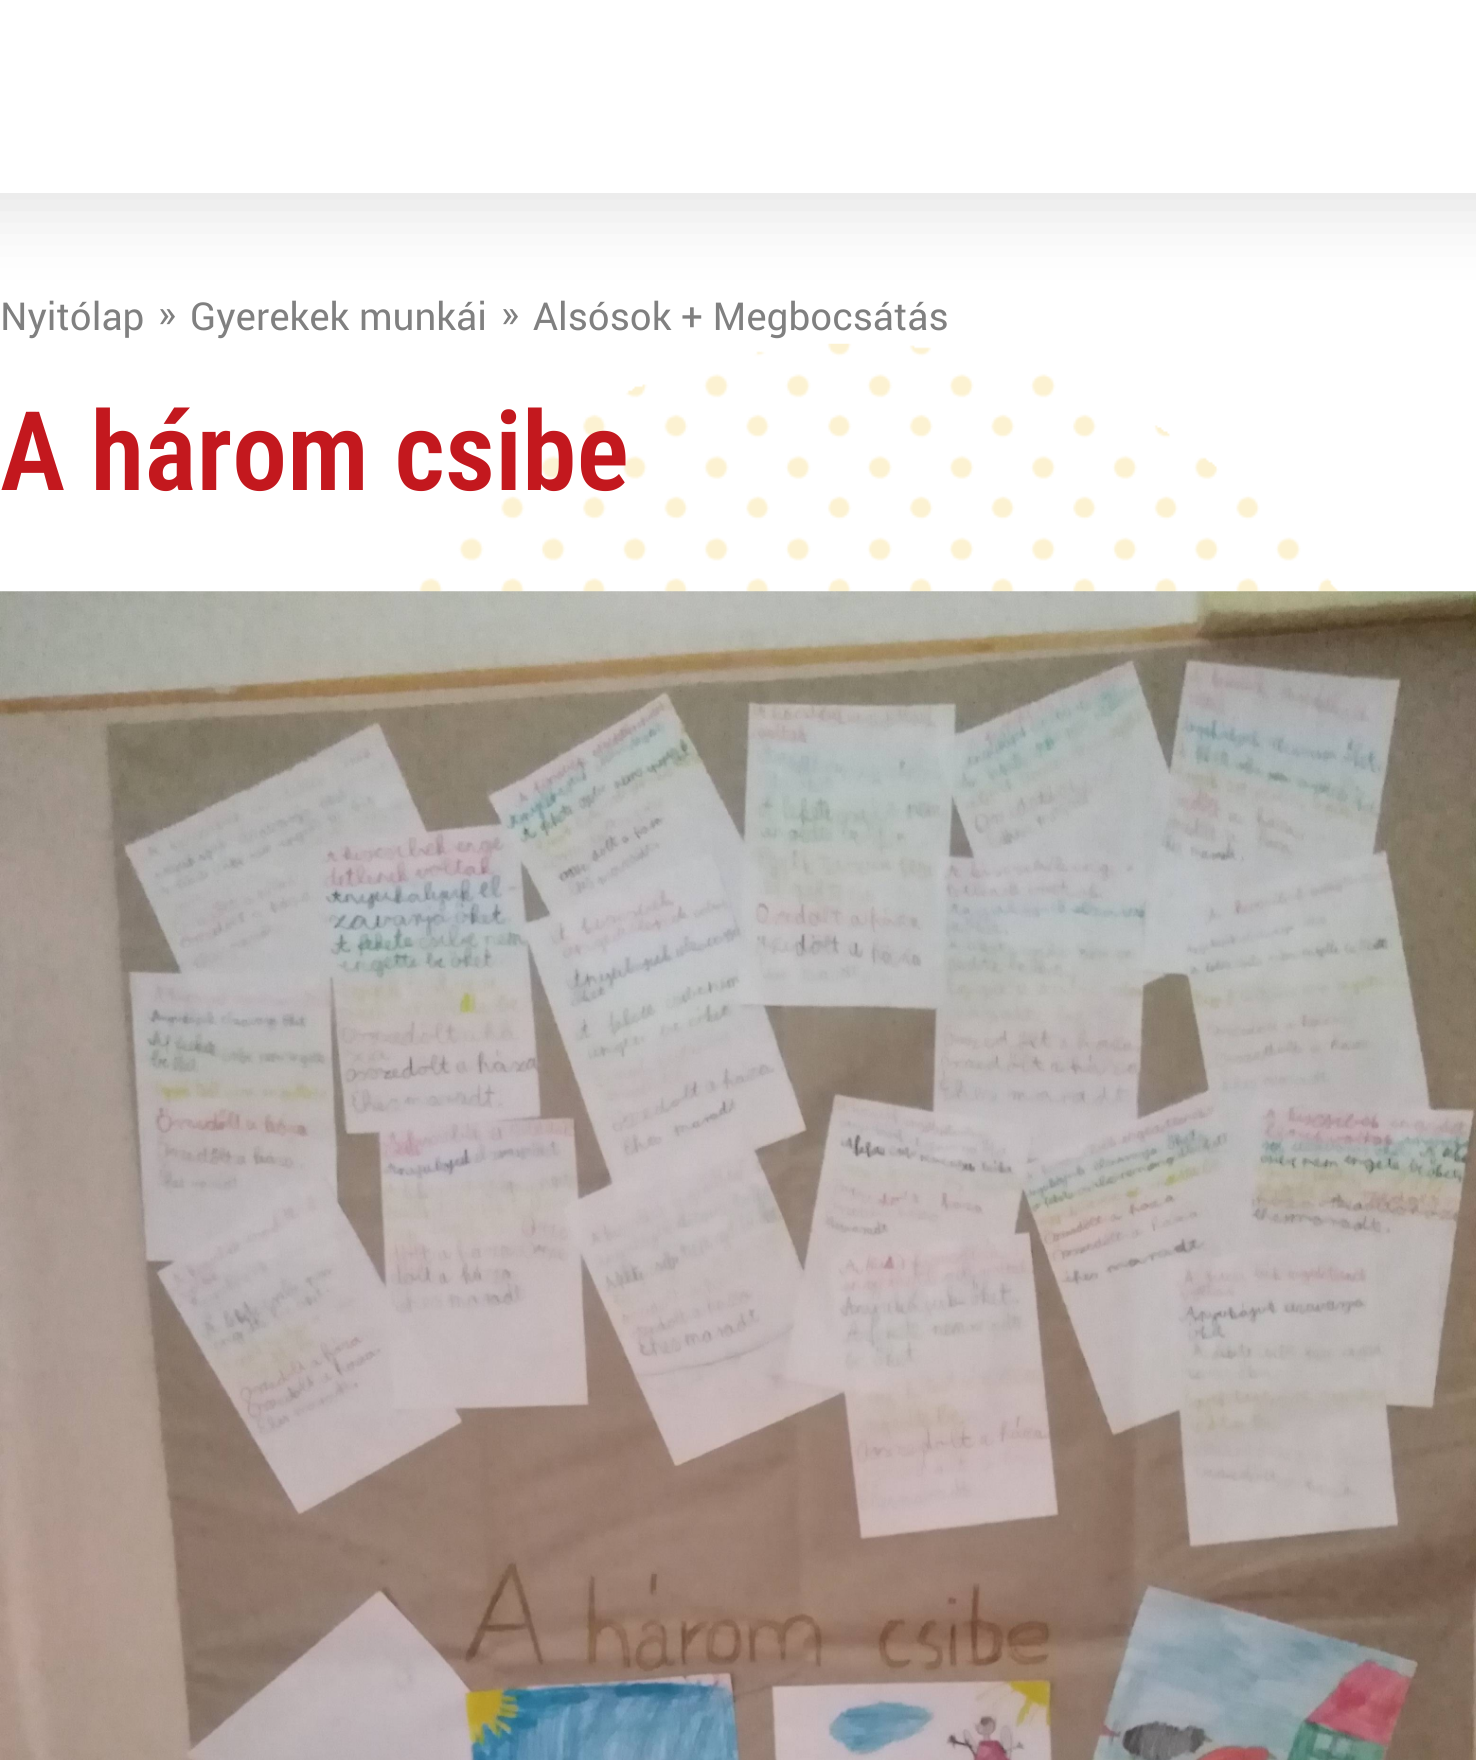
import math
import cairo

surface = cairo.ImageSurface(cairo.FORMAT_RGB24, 1476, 1760)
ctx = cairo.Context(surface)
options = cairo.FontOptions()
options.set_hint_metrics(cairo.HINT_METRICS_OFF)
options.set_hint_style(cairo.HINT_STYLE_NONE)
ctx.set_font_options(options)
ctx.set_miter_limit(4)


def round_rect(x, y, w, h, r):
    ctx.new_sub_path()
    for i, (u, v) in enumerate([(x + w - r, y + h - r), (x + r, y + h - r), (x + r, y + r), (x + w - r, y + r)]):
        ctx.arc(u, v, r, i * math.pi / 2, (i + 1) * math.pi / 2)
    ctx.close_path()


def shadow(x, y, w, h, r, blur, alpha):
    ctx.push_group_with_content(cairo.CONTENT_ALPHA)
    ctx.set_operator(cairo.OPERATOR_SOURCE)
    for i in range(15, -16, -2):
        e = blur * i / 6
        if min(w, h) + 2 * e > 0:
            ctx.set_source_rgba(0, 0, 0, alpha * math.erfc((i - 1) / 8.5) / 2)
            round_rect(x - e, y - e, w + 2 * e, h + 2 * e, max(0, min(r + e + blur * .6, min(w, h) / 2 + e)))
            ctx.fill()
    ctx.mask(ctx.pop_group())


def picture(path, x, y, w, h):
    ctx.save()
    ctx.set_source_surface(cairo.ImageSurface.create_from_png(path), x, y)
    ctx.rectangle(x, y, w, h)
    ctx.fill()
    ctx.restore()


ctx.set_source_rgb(1, 1, 1)
ctx.paint()
ctx.save()
ctx.set_fill_rule(cairo.FILL_RULE_EVEN_ODD)
ctx.new_path()
ctx.move_to(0, 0)
ctx.line_to(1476, 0)
ctx.line_to(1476, 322)
ctx.line_to(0, 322)
ctx.close_path()
ctx.move_to(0, 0)
ctx.line_to(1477, 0)
ctx.line_to(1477, 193)
ctx.line_to(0, 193)
ctx.close_path()
ctx.clip()
ctx.set_source_rgb(0, 0, 0)
shadow(-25, -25, 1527, 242, 0, 34.5, 0.1)
ctx.restore()
picture("img1.png", 418, 343, 922, 249)
ctx.select_font_face("Roboto")
ctx.set_font_size(38.5)
ctx.set_source_rgb(0.502, 0.502, 0.502)
ctx.move_to(0, 330)
ctx.show_text("Nyitólap")
ctx.move_to(158, 327)
ctx.show_text("»")
ctx.move_to(190, 330)
ctx.show_text("Gyerekek munkái")
ctx.move_to(501, 327)
ctx.show_text("»")
ctx.move_to(533, 330)
ctx.show_text("Alsósok + Megbocsátás")
ctx.select_font_face("Roboto Condensed SemiBold")
ctx.set_font_size(110)
ctx.set_source_rgb(0.765, 0.094, 0.118)
ctx.move_to(0, 490)
ctx.show_text("A három csibe")
picture("img2.png", 0, 591, 1476, 1169)
surface.write_to_png("page.png")
